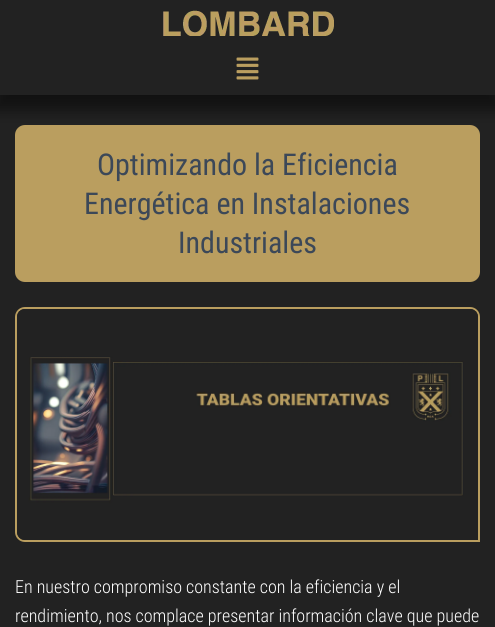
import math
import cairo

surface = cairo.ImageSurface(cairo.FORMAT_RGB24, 495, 627)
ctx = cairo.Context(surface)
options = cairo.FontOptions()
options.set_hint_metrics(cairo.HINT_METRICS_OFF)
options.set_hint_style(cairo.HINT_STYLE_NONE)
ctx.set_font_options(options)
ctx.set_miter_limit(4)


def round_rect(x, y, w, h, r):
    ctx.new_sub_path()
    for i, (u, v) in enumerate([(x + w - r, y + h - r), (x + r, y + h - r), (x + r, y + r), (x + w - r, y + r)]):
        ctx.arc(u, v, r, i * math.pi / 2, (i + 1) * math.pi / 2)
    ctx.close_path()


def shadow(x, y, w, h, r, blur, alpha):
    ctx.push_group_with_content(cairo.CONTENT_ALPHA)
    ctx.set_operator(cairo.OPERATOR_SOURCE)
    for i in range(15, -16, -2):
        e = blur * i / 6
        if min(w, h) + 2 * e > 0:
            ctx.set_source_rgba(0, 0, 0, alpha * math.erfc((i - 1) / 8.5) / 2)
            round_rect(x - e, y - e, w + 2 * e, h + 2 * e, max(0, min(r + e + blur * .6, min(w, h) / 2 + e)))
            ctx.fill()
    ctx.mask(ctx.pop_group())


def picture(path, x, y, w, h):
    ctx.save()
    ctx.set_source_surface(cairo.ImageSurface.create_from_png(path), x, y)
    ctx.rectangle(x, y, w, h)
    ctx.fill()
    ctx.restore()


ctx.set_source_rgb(0.133, 0.133, 0.133)
ctx.paint()
ctx.set_source_rgb(0.729, 0.62, 0.373)
round_rect(15, 125, 465, 157, 10)
ctx.fill()
ctx.save()
ctx.rectangle(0, 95, 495, 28)
ctx.clip()
ctx.set_source_rgb(0, 0, 0)
shadow(-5, 5, 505, 105, 0, 7.5, 0.5)
ctx.restore()
picture("img1.png", 163, 10, 171, 26)
picture("img2.png", 236, 57, 23, 23)
ctx.select_font_face("Roboto Condensed")
ctx.set_font_size(30)
ctx.set_source_rgb(0.235, 0.282, 0.345)
ctx.move_to(97, 175)
ctx.show_text("Optimizando la Eficiencia")
ctx.move_to(84, 214)
ctx.show_text("Energética en Instalaciones")
ctx.move_to(178, 253)
ctx.show_text("Industriales")
ctx.new_path()
ctx.move_to(25, 308)
ctx.line_to(470, 308)
ctx.curve_to(475, 308, 479, 312, 479, 317)
ctx.line_to(479, 541)
ctx.line_to(25, 541)
ctx.curve_to(20, 541, 16, 537, 16, 532)
ctx.line_to(16, 317)
ctx.curve_to(16, 312, 20, 308, 25, 308)
ctx.close_path()
ctx.set_source_rgb(0.729, 0.62, 0.373)
ctx.stroke()
picture("img3.png", 17, 309, 461, 231)
ctx.select_font_face("Roboto Condensed Light")
ctx.set_font_size(18)
ctx.set_source_rgb(1, 1, 1)
ctx.move_to(15, 593)
ctx.show_text("En nuestro compromiso constante con la eficiencia y el")
ctx.move_to(15, 622)
ctx.show_text("rendimiento, nos complace presentar información clave que puede")
ctx.set_source_rgb(0.133, 0.133, 0.133)
ctx.new_path()
ctx.arc(455, 587, 25, 0, 2 * math.pi)
ctx.fill()
surface.write_to_png("page.png")
